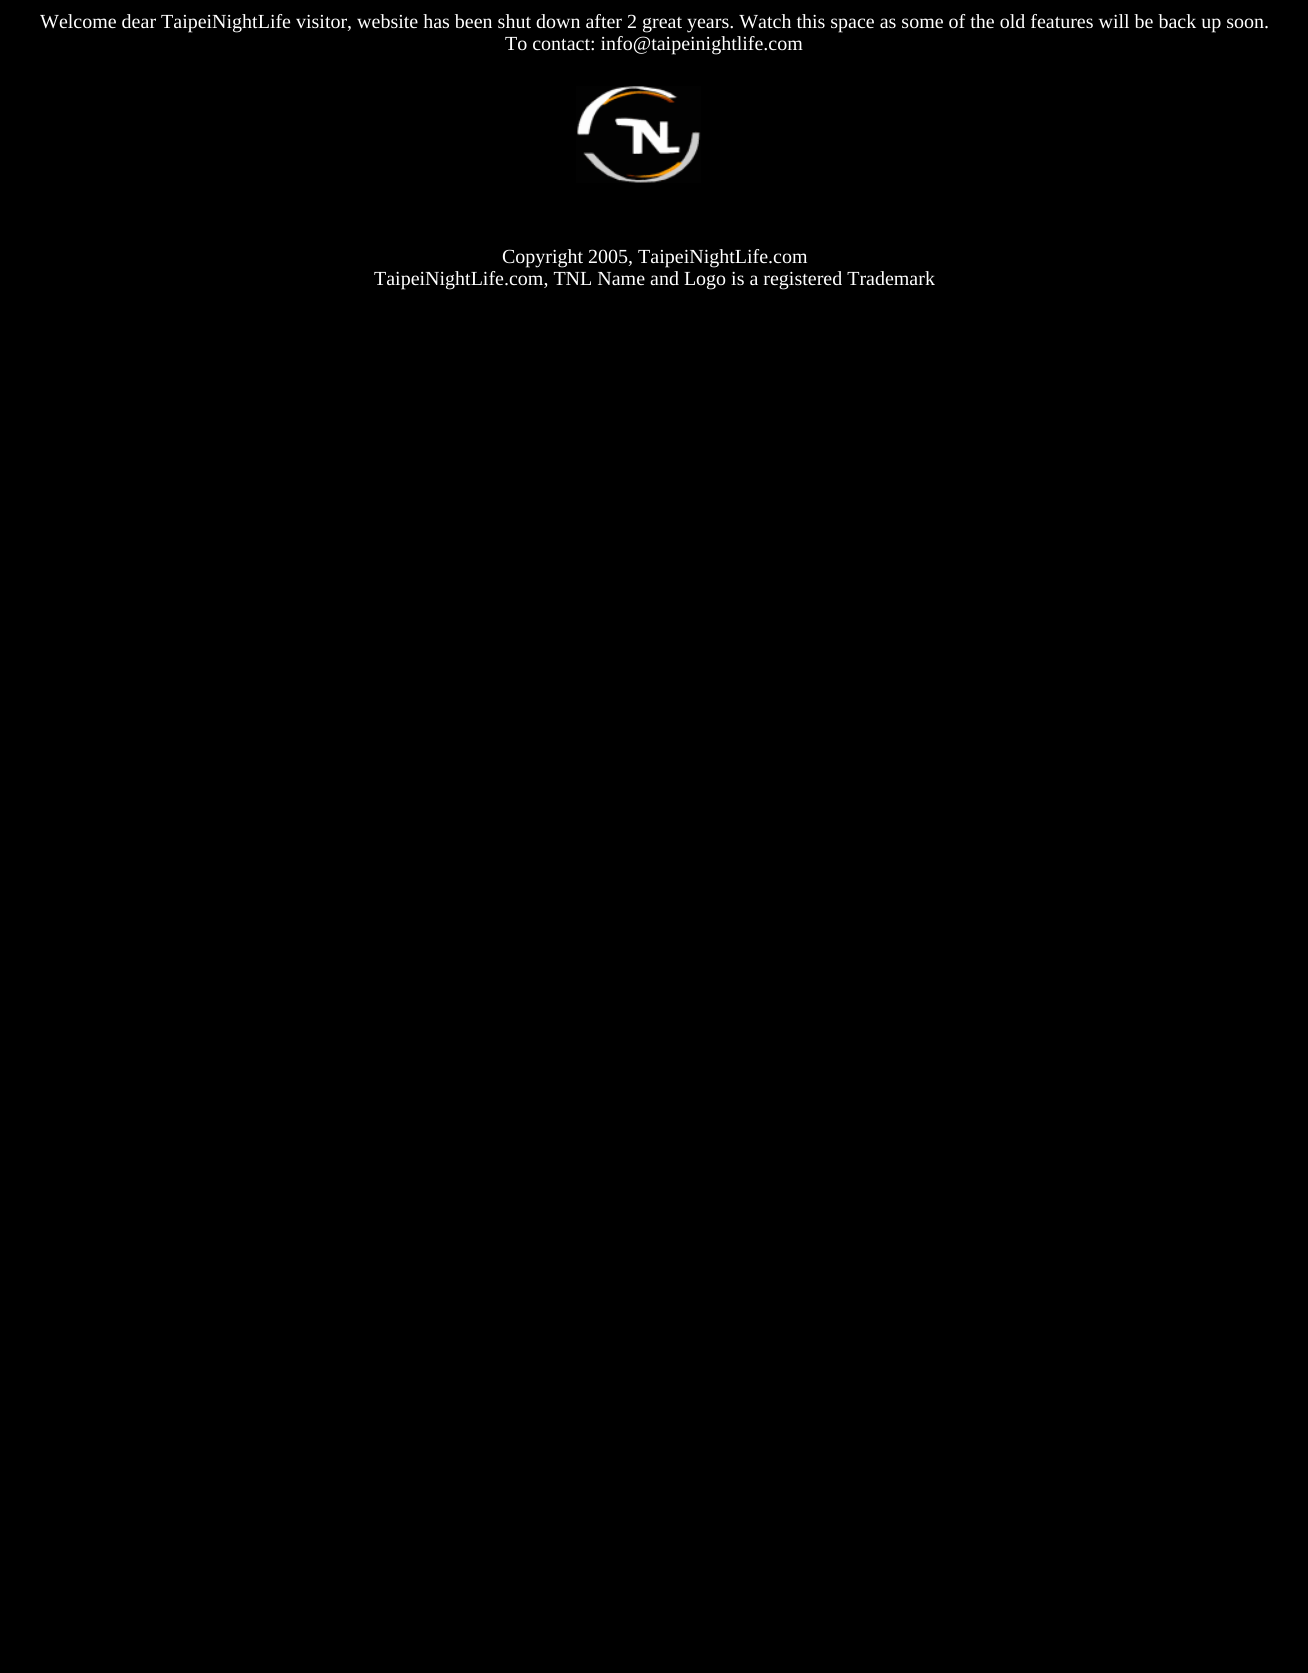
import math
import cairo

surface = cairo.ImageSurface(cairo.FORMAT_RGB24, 1308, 1673)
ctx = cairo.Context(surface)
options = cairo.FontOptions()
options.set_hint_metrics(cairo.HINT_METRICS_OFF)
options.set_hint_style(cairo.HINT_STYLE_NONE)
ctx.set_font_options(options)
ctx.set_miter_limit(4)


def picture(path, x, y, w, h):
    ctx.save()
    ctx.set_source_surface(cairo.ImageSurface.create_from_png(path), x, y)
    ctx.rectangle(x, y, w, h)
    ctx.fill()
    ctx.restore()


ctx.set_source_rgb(0, 0, 0)
ctx.paint()
ctx.select_font_face("Liberation Serif")
ctx.set_font_size(20)
ctx.set_source_rgb(1, 1, 1)
ctx.move_to(40, 28)
ctx.show_text("Welcome dear TaipeiNightLife visitor, website has been shut down after 2 great years. Watch this space as some of the old features will be back up soon.")
ctx.move_to(505, 50)
ctx.show_text("To contact: info@taipeinightlife.com")
picture("img1.png", 576, 86, 125, 97)
ctx.move_to(502, 263)
ctx.show_text("Copyright 2005, TaipeiNightLife.com")
ctx.move_to(374, 285)
ctx.show_text("TaipeiNightLife.com, TNL Name and Logo is a registered Trademark")
surface.write_to_png("page.png")
